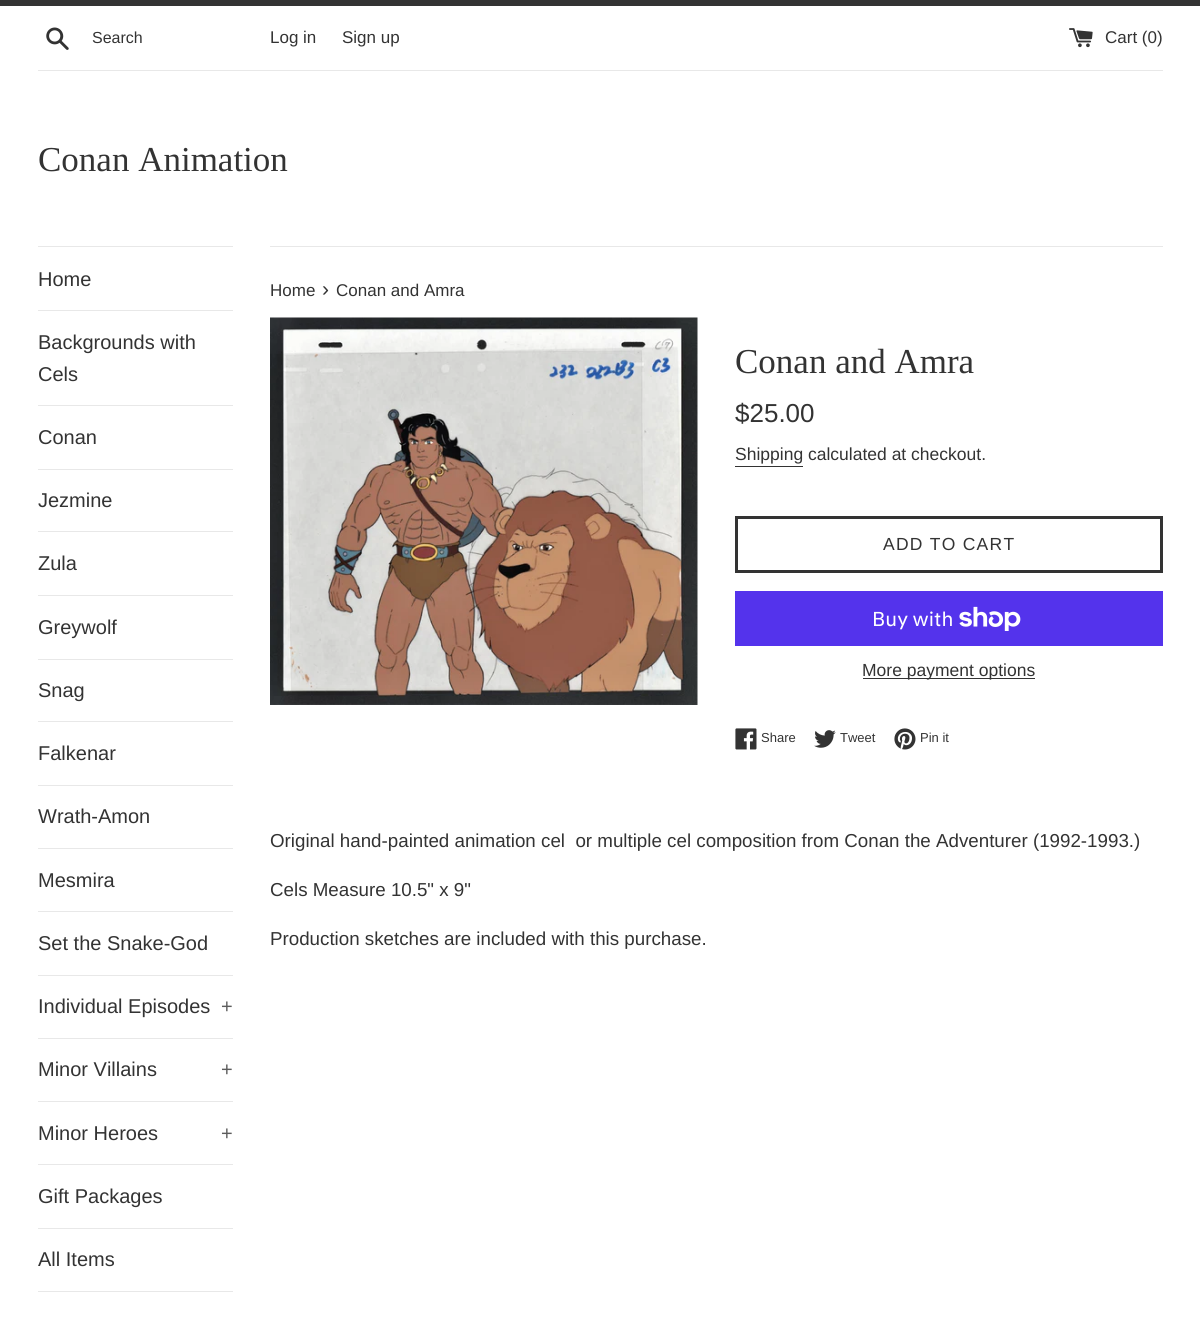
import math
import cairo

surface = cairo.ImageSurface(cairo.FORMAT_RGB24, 1200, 1330)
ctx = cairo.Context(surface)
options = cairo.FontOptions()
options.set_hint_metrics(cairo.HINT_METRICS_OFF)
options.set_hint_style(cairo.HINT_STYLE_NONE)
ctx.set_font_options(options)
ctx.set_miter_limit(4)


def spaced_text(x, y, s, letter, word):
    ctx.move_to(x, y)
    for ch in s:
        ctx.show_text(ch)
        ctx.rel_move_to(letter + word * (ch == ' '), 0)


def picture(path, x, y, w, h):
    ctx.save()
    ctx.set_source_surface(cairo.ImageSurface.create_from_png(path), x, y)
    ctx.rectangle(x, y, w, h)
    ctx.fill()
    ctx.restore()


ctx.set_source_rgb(1, 1, 1)
ctx.paint()
ctx.set_source_rgb(0.2, 0.2, 0.2)
ctx.rectangle(0, 0, 1200, 6)
ctx.fill()
picture("img1.png", 46, 27, 23, 23)
ctx.select_font_face("Liberation Sans")
ctx.set_font_size(16)
ctx.move_to(92, 43)
ctx.show_text("Search")
ctx.set_font_size(17)
ctx.move_to(270, 43)
ctx.show_text("Log in")
ctx.move_to(342, 43)
ctx.show_text("Sign up")
picture("img2.png", 1069, 28, 24, 20)
ctx.move_to(1105, 43)
ctx.show_text("Cart (0)")
ctx.set_source_rgb(0.91, 0.91, 0.91)
ctx.rectangle(38, 70, 1125, 1)
ctx.fill()
ctx.select_font_face("Liberation Serif")
ctx.set_font_size(35)
ctx.set_source_rgb(0.2, 0.2, 0.2)
ctx.move_to(38, 171)
ctx.show_text("Conan Animation")
ctx.set_source_rgb(0.91, 0.91, 0.91)
ctx.rectangle(38, 246, 195, 1)
ctx.fill()
ctx.rectangle(38, 310, 195, 1)
ctx.fill()
ctx.select_font_face("Liberation Sans")
ctx.set_font_size(20)
ctx.set_source_rgb(0.2, 0.2, 0.2)
ctx.move_to(38, 286)
ctx.show_text("Home")
ctx.set_source_rgb(0.91, 0.91, 0.91)
ctx.rectangle(38, 405, 195, 1)
ctx.fill()
ctx.set_source_rgb(0.2, 0.2, 0.2)
ctx.move_to(38, 349)
ctx.show_text("Backgrounds with")
ctx.move_to(38, 381)
ctx.show_text("Cels")
ctx.set_source_rgb(0.91, 0.91, 0.91)
ctx.rectangle(38, 469, 195, 1)
ctx.fill()
ctx.set_source_rgb(0.2, 0.2, 0.2)
ctx.move_to(38, 444)
ctx.show_text("Conan")
ctx.set_source_rgb(0.91, 0.91, 0.91)
ctx.rectangle(38, 531, 195, 1)
ctx.fill()
ctx.set_source_rgb(0.2, 0.2, 0.2)
ctx.move_to(38, 507)
ctx.show_text("Jezmine")
ctx.set_source_rgb(0.91, 0.91, 0.91)
ctx.rectangle(38, 595, 195, 1)
ctx.fill()
ctx.set_source_rgb(0.2, 0.2, 0.2)
ctx.move_to(38, 570)
ctx.show_text("Zula")
ctx.set_source_rgb(0.91, 0.91, 0.91)
ctx.rectangle(38, 659, 195, 1)
ctx.fill()
ctx.set_source_rgb(0.2, 0.2, 0.2)
ctx.move_to(38, 634)
ctx.show_text("Greywolf")
ctx.set_source_rgb(0.91, 0.91, 0.91)
ctx.rectangle(38, 721, 195, 1)
ctx.fill()
ctx.set_source_rgb(0.2, 0.2, 0.2)
ctx.move_to(38, 697)
ctx.show_text("Snag")
ctx.set_source_rgb(0.91, 0.91, 0.91)
ctx.rectangle(38, 785, 195, 1)
ctx.fill()
ctx.set_source_rgb(0.2, 0.2, 0.2)
ctx.move_to(38, 760)
ctx.show_text("Falkenar")
ctx.set_source_rgb(0.91, 0.91, 0.91)
ctx.rectangle(38, 848, 195, 1)
ctx.fill()
ctx.set_source_rgb(0.2, 0.2, 0.2)
ctx.move_to(38, 823)
ctx.show_text("Wrath-Amon")
ctx.set_source_rgb(0.91, 0.91, 0.91)
ctx.rectangle(38, 911, 195, 1)
ctx.fill()
ctx.set_source_rgb(0.2, 0.2, 0.2)
ctx.move_to(38, 887)
ctx.show_text("Mesmira")
ctx.set_source_rgb(0.91, 0.91, 0.91)
ctx.rectangle(38, 975, 195, 1)
ctx.fill()
ctx.set_source_rgb(0.2, 0.2, 0.2)
ctx.move_to(38, 950)
ctx.show_text("Set the Snake-God")
ctx.set_source_rgb(0.91, 0.91, 0.91)
ctx.rectangle(38, 1038, 195, 1)
ctx.fill()
ctx.set_source_rgb(0.2, 0.2, 0.2)
ctx.move_to(38, 1013)
ctx.show_text("Individual Episodes")
ctx.set_source_rgb(0.361, 0.361, 0.361)
ctx.move_to(221, 1013)
ctx.show_text("+")
ctx.set_source_rgb(0.91, 0.91, 0.91)
ctx.rectangle(38, 1101, 195, 1)
ctx.fill()
ctx.set_source_rgb(0.2, 0.2, 0.2)
ctx.move_to(38, 1076)
ctx.show_text("Minor Villains")
ctx.set_source_rgb(0.361, 0.361, 0.361)
ctx.move_to(221, 1076)
ctx.show_text("+")
ctx.set_source_rgb(0.91, 0.91, 0.91)
ctx.rectangle(38, 1164, 195, 1)
ctx.fill()
ctx.set_source_rgb(0.2, 0.2, 0.2)
ctx.move_to(38, 1140)
ctx.show_text("Minor Heroes")
ctx.set_source_rgb(0.361, 0.361, 0.361)
ctx.move_to(221, 1140)
ctx.show_text("+")
ctx.set_source_rgb(0.91, 0.91, 0.91)
ctx.rectangle(38, 1228, 195, 1)
ctx.fill()
ctx.set_source_rgb(0.2, 0.2, 0.2)
ctx.move_to(38, 1203)
ctx.show_text("Gift Packages")
ctx.set_source_rgb(0.91, 0.91, 0.91)
ctx.rectangle(38, 1291, 195, 1)
ctx.fill()
ctx.set_source_rgb(0.2, 0.2, 0.2)
ctx.move_to(38, 1266)
ctx.show_text("All Items")
ctx.set_source_rgb(0.91, 0.91, 0.91)
ctx.rectangle(270, 246, 893, 1)
ctx.fill()
ctx.set_font_size(17)
ctx.set_source_rgb(0.2, 0.2, 0.2)
ctx.move_to(270, 296)
ctx.show_text("Home")
ctx.set_font_size(21)
ctx.move_to(322, 296)
ctx.show_text("›")
ctx.set_font_size(17)
ctx.move_to(336, 296)
ctx.show_text("Conan and Amra")
picture("img3.png", 270, 317, 428, 388)
ctx.select_font_face("Liberation Serif")
ctx.set_font_size(35)
ctx.move_to(735, 373)
ctx.show_text("Conan and Amra")
ctx.select_font_face("Liberation Sans")
ctx.set_font_size(26)
ctx.move_to(735, 422)
ctx.show_text("$25.00")
ctx.set_font_size(17.5)
ctx.move_to(735, 460)
ctx.show_text("Shipping calculated at checkout.")
ctx.rectangle(735, 466, 68, 1)
ctx.fill()
ctx.rectangle(736.5, 517.5, 425, 54)
ctx.set_line_width(3)
ctx.stroke()
spaced_text(883, 550, "ADD TO CART", 1.25, 0)
ctx.set_source_rgb(0.329, 0.2, 0.922)
ctx.rectangle(735, 591, 428, 55)
ctx.fill()
ctx.select_font_face("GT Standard")
ctx.set_font_size(20)
ctx.set_source_rgb(1, 1, 1)
ctx.move_to(872, 626)
ctx.show_text("Buy with")
picture("img4.png", 959, 606, 62, 25)
ctx.set_source_rgb(0.2, 0.2, 0.2)
ctx.rectangle(863, 678, 172, 1)
ctx.fill()
ctx.select_font_face("Liberation Sans")
ctx.set_font_size(17.5)
ctx.move_to(862, 676)
ctx.show_text("More payment options")
picture("img5.png", 735, 728, 22, 22)
ctx.set_font_size(13)
ctx.move_to(761, 742)
ctx.show_text("Share")
picture("img6.png", 814, 730, 22, 18)
ctx.move_to(840, 742)
ctx.show_text("Tweet")
picture("img7.png", 894, 728, 22, 22)
ctx.move_to(920, 742)
ctx.show_text("Pin it")
ctx.set_font_size(18.75)
ctx.move_to(270, 847)
ctx.show_text("Original hand-painted animation cel  or multiple cel composition from Conan the Adventurer (1992-1993.)")
ctx.move_to(270, 896)
ctx.show_text("Cels Measure 10.5\" x 9\"")
ctx.move_to(270, 945)
ctx.show_text("Production sketches are included with this purchase.")
surface.write_to_png("page.png")
